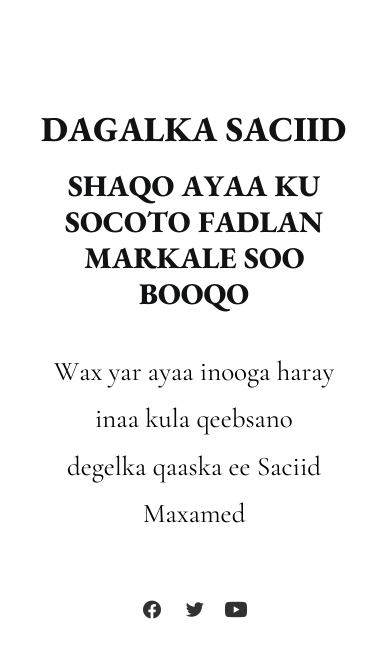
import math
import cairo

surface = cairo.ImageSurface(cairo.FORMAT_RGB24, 388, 666)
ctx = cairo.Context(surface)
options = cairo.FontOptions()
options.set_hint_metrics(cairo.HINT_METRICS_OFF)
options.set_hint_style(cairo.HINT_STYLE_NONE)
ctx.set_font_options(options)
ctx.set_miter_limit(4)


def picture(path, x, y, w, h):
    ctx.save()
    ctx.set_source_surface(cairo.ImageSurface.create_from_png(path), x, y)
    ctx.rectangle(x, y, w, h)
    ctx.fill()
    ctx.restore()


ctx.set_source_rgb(1, 1, 1)
ctx.paint()
ctx.select_font_face("EB Garamond ExtraBold")
ctx.set_font_size(35)
ctx.set_source_rgb(0.063, 0.071, 0.075)
ctx.move_to(41, 141)
ctx.show_text("DAGALKA SACIID")
ctx.set_font_size(30)
ctx.move_to(68, 196)
ctx.show_text("SHAQO AYAA KU")
ctx.move_to(65, 232)
ctx.show_text("SOCOTO FADLAN")
ctx.move_to(84, 268)
ctx.show_text("MARKALE SOO")
ctx.move_to(139, 304)
ctx.show_text("BOOQO")
ctx.select_font_face("Cormorant Garamond")
ctx.set_font_size(27)
ctx.set_source_rgb(0, 0, 0)
ctx.move_to(54, 380)
ctx.show_text("Wax yar ayaa inooga haray")
ctx.move_to(95, 427)
ctx.show_text("inaa kula qeebsano")
ctx.move_to(67, 475)
ctx.show_text("degelka qaaska ee Saciid")
ctx.move_to(143, 522)
ctx.show_text("Maxamed")
picture("img1.png", 143, 600, 18, 19)
picture("img2.png", 186, 602, 18, 15)
picture("img3.png", 224, 601, 24, 17)
surface.write_to_png("page.png")
